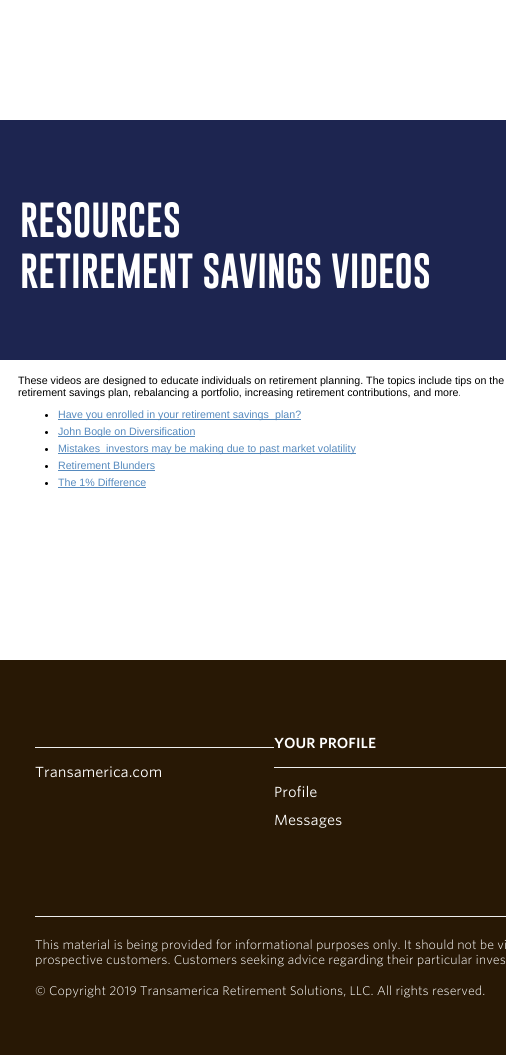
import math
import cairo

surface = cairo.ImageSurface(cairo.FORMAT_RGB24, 506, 1059)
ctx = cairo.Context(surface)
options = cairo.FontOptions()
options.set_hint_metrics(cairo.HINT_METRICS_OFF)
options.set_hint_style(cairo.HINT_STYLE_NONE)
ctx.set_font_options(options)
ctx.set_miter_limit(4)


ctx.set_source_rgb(1, 1, 1)
ctx.paint()
ctx.set_source_rgb(0.114, 0.145, 0.314)
ctx.rectangle(0, 120, 506, 240)
ctx.fill()
ctx.select_font_face("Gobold", cairo.FONT_SLANT_NORMAL, cairo.FONT_WEIGHT_BOLD)
ctx.set_font_size(36)
ctx.set_source_rgb(1, 1, 1)
ctx.move_to(20, 237)
ctx.show_text("RESOURCES")
ctx.move_to(20, 288)
ctx.show_text("RETIREMENT SAVINGS VIDEOS")
ctx.select_font_face("Liberation Sans")
ctx.set_font_size(10.65)
ctx.set_source_rgb(0, 0, 0)
ctx.move_to(18, 384)
ctx.show_text("These videos are designed to educate individuals on retirement planning. The topics include tips on the")
ctx.move_to(18, 396)
ctx.show_text("retirement savings plan, rebalancing a portfolio, increasing retirement contributions, and more.")
ctx.new_path()
ctx.arc(46.5, 415.5, 1.5, 0, 2 * math.pi)
ctx.fill()
ctx.set_source_rgb(0.337, 0.541, 0.745)
ctx.rectangle(58, 419, 243, 1)
ctx.fill()
ctx.move_to(58, 418)
ctx.show_text("Have you enrolled in your retirement savings")
ctx.move_to(275, 418)
ctx.show_text("plan?")
ctx.set_source_rgb(0, 0, 0)
ctx.new_path()
ctx.arc(46.5, 432.5, 1.5, 0, 2 * math.pi)
ctx.fill()
ctx.set_source_rgb(0.337, 0.541, 0.745)
ctx.rectangle(58, 436, 137, 1)
ctx.fill()
ctx.move_to(58, 435)
ctx.show_text("John Bogle on Diversification")
ctx.set_source_rgb(0, 0, 0)
ctx.new_path()
ctx.arc(46.5, 449.5, 1.5, 0, 2 * math.pi)
ctx.fill()
ctx.set_source_rgb(0.337, 0.541, 0.745)
ctx.rectangle(58, 453, 298, 1)
ctx.fill()
ctx.move_to(58, 452)
ctx.show_text("Mistakes  investors may be making due to past market volatility")
ctx.set_source_rgb(0, 0, 0)
ctx.new_path()
ctx.arc(46.5, 466.5, 1.5, 0, 2 * math.pi)
ctx.fill()
ctx.set_source_rgb(0.337, 0.541, 0.745)
ctx.move_to(58, 469)
ctx.show_text("Retirement Blunders")
ctx.rectangle(58, 470, 97, 1)
ctx.fill()
ctx.set_source_rgb(0, 0, 0)
ctx.arc(46.5, 483.5, 1.5, 0, 2 * math.pi)
ctx.fill()
ctx.set_source_rgb(0.337, 0.541, 0.745)
ctx.move_to(58, 486)
ctx.show_text("The 1% Difference")
ctx.rectangle(58, 487, 88, 1)
ctx.fill()
ctx.set_source_rgb(0.157, 0.094, 0.02)
ctx.rectangle(0, 660, 506, 395)
ctx.fill()
ctx.select_font_face("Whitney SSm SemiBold")
ctx.set_font_size(14)
ctx.set_source_rgb(1, 1, 1)
ctx.move_to(274, 748)
ctx.show_text("YOUR PROFILE")
ctx.set_source_rgb(0.933, 0.933, 0.933)
ctx.rectangle(35, 747, 239, 1)
ctx.fill()
ctx.select_font_face("Whitney SSm")
ctx.set_source_rgb(1, 1, 1)
ctx.move_to(35, 777)
ctx.show_text("Transamerica.com")
ctx.set_source_rgb(0.933, 0.933, 0.933)
ctx.rectangle(274, 767, 232, 1)
ctx.fill()
ctx.set_source_rgb(1, 1, 1)
ctx.move_to(274, 797)
ctx.show_text("Profile")
ctx.move_to(274, 825)
ctx.show_text("Messages")
ctx.set_source_rgb(0.933, 0.933, 0.933)
ctx.rectangle(35, 916, 471, 1)
ctx.fill()
ctx.select_font_face("Whitney SSm Light")
ctx.set_font_size(12)
ctx.set_source_rgb(1, 1, 1)
ctx.move_to(35, 949)
ctx.show_text("This material is being provided for informational purposes only. It should not be vi")
ctx.move_to(35, 964)
ctx.show_text("prospective customers. Customers seeking advice regarding their particular inves")
ctx.move_to(35, 995)
ctx.show_text("© Copyright 2019 Transamerica Retirement Solutions, LLC. All rights reserved.")
surface.write_to_png("page.png")
